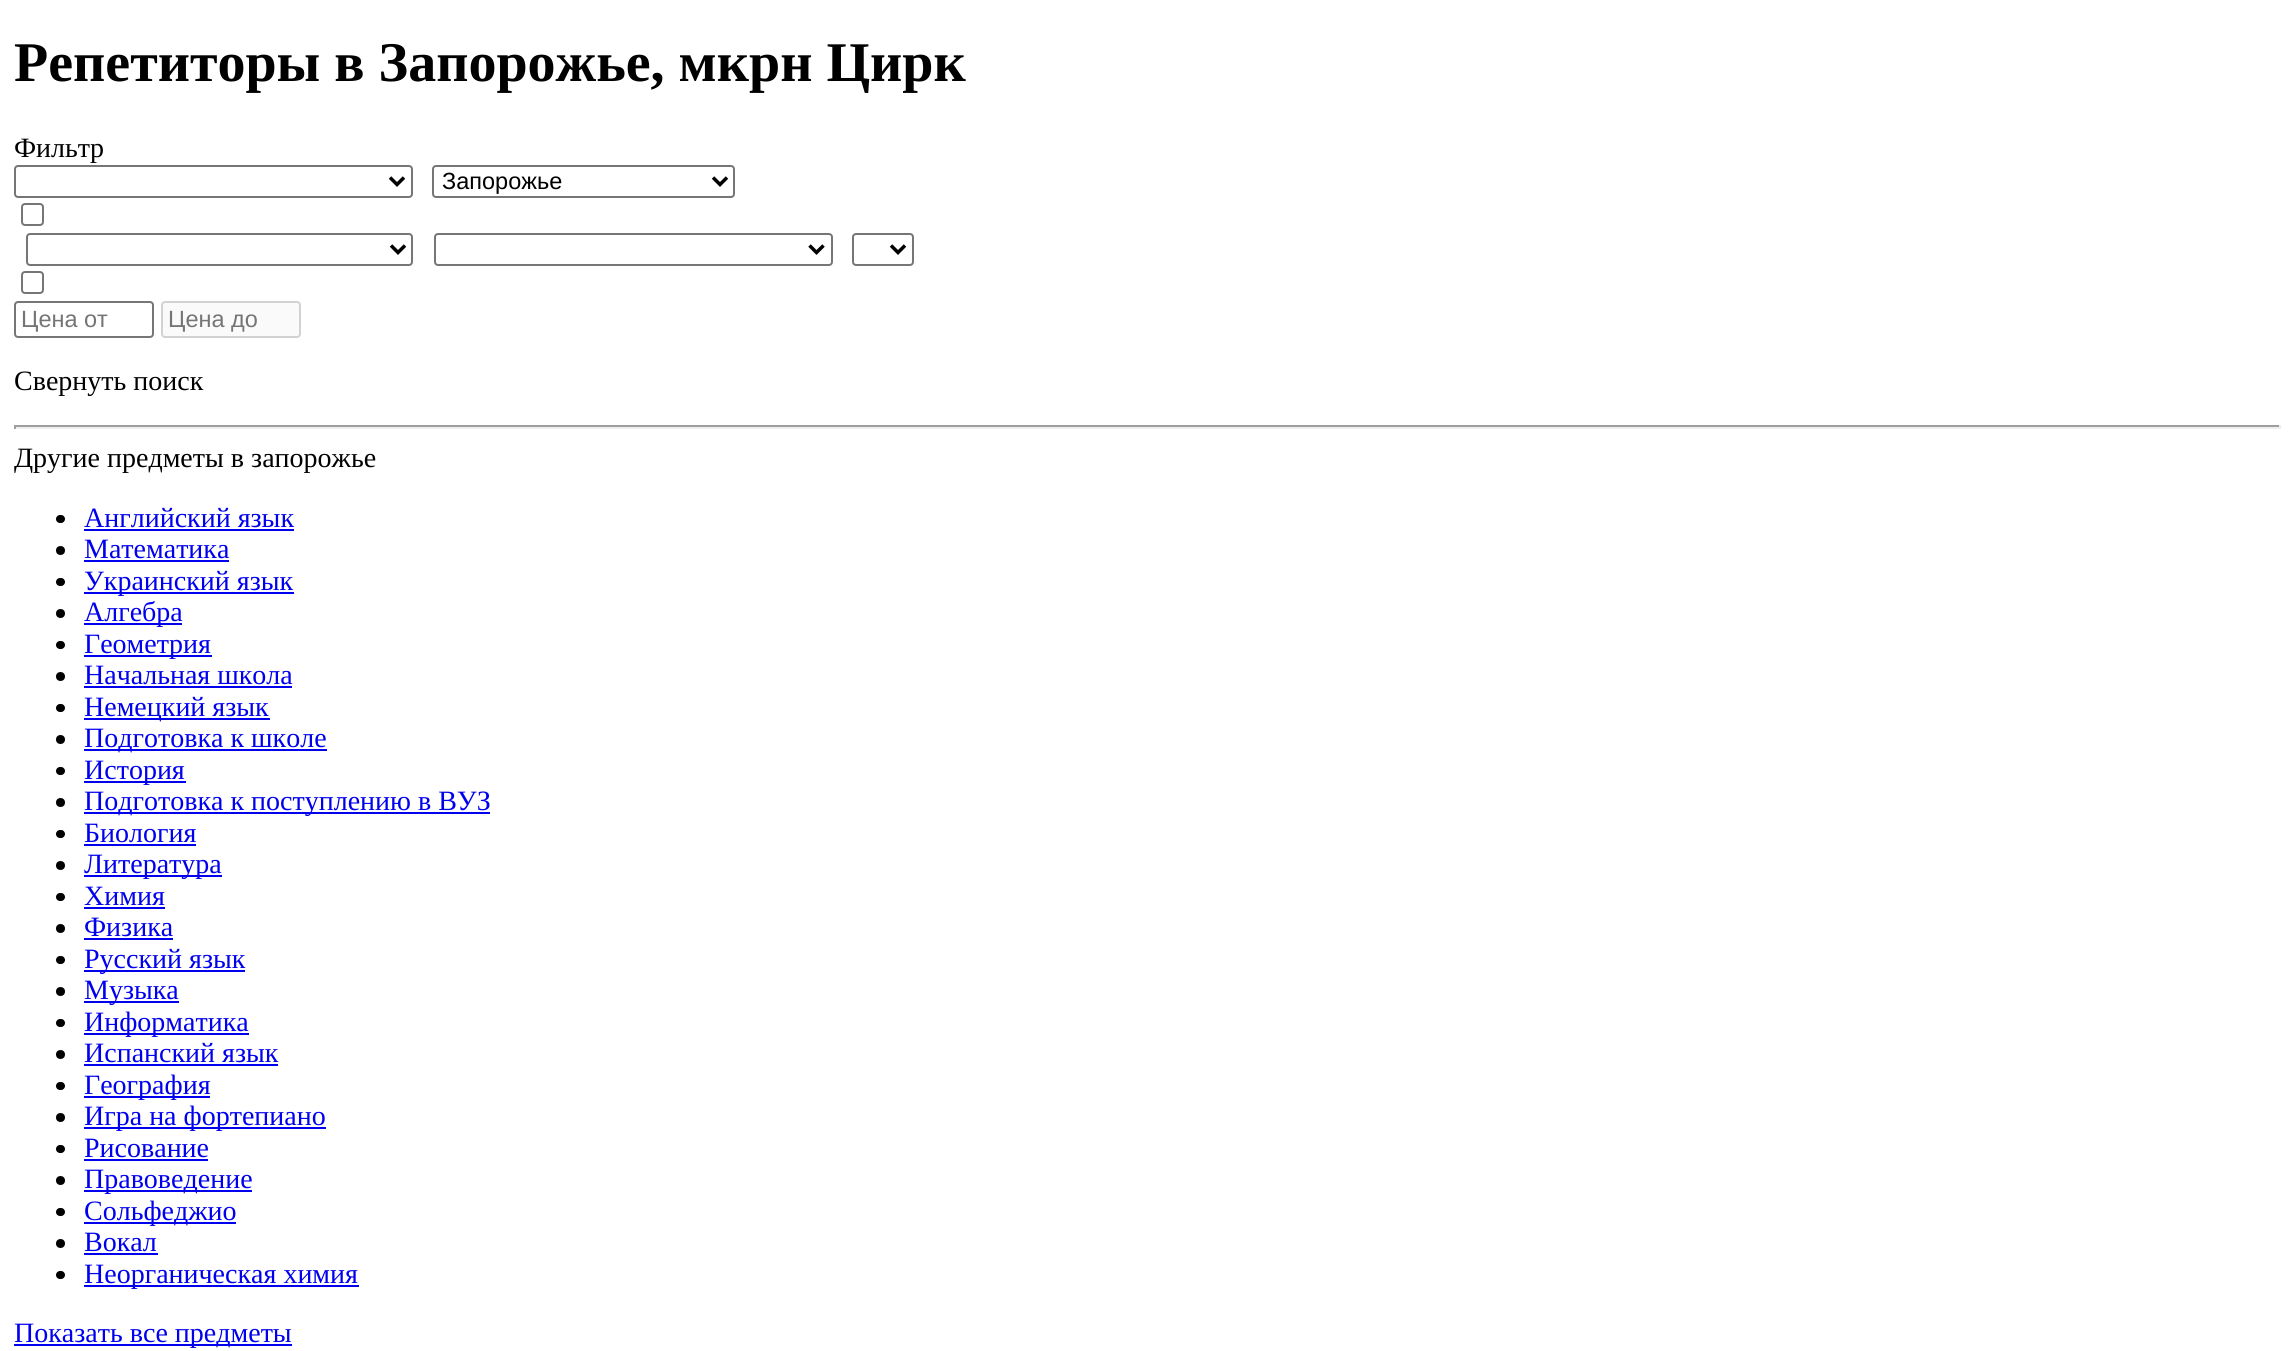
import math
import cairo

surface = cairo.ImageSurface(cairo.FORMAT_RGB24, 2294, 1351)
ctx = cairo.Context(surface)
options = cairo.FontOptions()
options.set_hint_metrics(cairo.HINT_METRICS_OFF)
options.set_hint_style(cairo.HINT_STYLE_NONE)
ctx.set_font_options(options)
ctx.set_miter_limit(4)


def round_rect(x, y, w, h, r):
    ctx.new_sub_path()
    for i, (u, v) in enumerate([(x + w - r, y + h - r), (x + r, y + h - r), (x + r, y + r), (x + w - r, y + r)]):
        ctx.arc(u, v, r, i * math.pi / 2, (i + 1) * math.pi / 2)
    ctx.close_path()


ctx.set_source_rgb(1, 1, 1)
ctx.paint()
ctx.select_font_face("Liberation Serif", cairo.FONT_SLANT_NORMAL, cairo.FONT_WEIGHT_BOLD)
ctx.set_font_size(56)
ctx.set_source_rgb(0, 0, 0)
ctx.move_to(14, 81)
ctx.show_text("Репетиторы в Запорожье, мкрн Цирк")
ctx.select_font_face("Liberation Serif")
ctx.set_font_size(28)
ctx.move_to(14, 157)
ctx.show_text("Фильтр")
round_rect(15, 166, 397, 31, 3)
ctx.set_source_rgb(0.463, 0.463, 0.463)
ctx.stroke()
ctx.new_path()
ctx.move_to(390, 177.5)
ctx.line_to(397, 184.5)
ctx.line_to(404, 177.5)
ctx.set_source_rgb(0, 0, 0)
ctx.set_line_width(3.5)
ctx.stroke()
round_rect(433, 166, 301, 31, 3)
ctx.set_source_rgb(0.463, 0.463, 0.463)
ctx.set_line_width(2)
ctx.stroke()
ctx.new_path()
ctx.move_to(713, 177.5)
ctx.line_to(720, 184.5)
ctx.line_to(727, 177.5)
ctx.set_source_rgb(0, 0, 0)
ctx.set_line_width(3.5)
ctx.stroke()
ctx.select_font_face("Liberation Sans")
ctx.set_font_size(23.5)
ctx.move_to(442, 189)
ctx.show_text("Запорожье")
round_rect(22, 204, 21, 21, 3)
ctx.set_source_rgb(0.463, 0.463, 0.463)
ctx.set_line_width(2)
ctx.stroke()
round_rect(27, 234, 385, 31, 3)
ctx.stroke()
ctx.new_path()
ctx.move_to(391, 245.5)
ctx.line_to(398, 252.5)
ctx.line_to(405, 245.5)
ctx.set_source_rgb(0, 0, 0)
ctx.set_line_width(3.5)
ctx.stroke()
round_rect(435, 234, 397, 31, 3)
ctx.set_source_rgb(0.463, 0.463, 0.463)
ctx.set_line_width(2)
ctx.stroke()
ctx.new_path()
ctx.move_to(809.5, 245.5)
ctx.line_to(816.5, 252.5)
ctx.line_to(823.5, 245.5)
ctx.set_source_rgb(0, 0, 0)
ctx.set_line_width(3.5)
ctx.stroke()
round_rect(853, 234, 60, 31, 3)
ctx.set_source_rgb(0.463, 0.463, 0.463)
ctx.set_line_width(2)
ctx.stroke()
ctx.new_path()
ctx.move_to(891, 245.5)
ctx.line_to(898, 252.5)
ctx.line_to(905, 245.5)
ctx.set_source_rgb(0, 0, 0)
ctx.set_line_width(3.5)
ctx.stroke()
round_rect(22, 272, 21, 21, 3)
ctx.set_source_rgb(0.463, 0.463, 0.463)
ctx.set_line_width(2)
ctx.stroke()
round_rect(15, 302, 138, 35, 3)
ctx.stroke()
ctx.set_source_rgb(0.459, 0.459, 0.459)
ctx.move_to(21, 327)
ctx.show_text("Цена от")
ctx.set_source_rgb(0.98, 0.98, 0.98)
round_rect(162, 302, 138, 35, 3)
ctx.fill_preserve()
ctx.set_source_rgb(0.824, 0.824, 0.824)
ctx.stroke()
ctx.set_source_rgb(0.459, 0.459, 0.459)
ctx.move_to(168, 327)
ctx.show_text("Цена до")
ctx.select_font_face("Liberation Serif")
ctx.set_font_size(28)
ctx.set_source_rgb(0, 0, 0)
ctx.move_to(14, 390)
ctx.show_text("Свернуть поиск")
ctx.set_source_rgb(0.624, 0.624, 0.624)
ctx.rectangle(14, 425, 2266, 2)
ctx.fill()
ctx.set_source_rgb(0.933, 0.933, 0.933)
ctx.rectangle(2279, 425, 2, 4)
ctx.fill()
ctx.rectangle(14, 427, 2266, 2)
ctx.fill()
ctx.set_source_rgb(0.624, 0.624, 0.624)
ctx.rectangle(14, 425, 2, 4)
ctx.fill()
ctx.set_source_rgb(0, 0, 0)
ctx.move_to(14, 467)
ctx.show_text("Другие предметы в запорожье")
round_rect(56, 515, 9, 8, 4)
ctx.fill()
ctx.set_source_rgb(0, 0, 0.933)
ctx.move_to(84, 527)
ctx.show_text("Английский язык")
ctx.rectangle(84, 529, 210, 2)
ctx.fill()
ctx.set_source_rgb(0, 0, 0)
ctx.arc(60.5, 550.5, 4.5, 0, 2 * math.pi)
ctx.fill()
ctx.set_source_rgb(0, 0, 0.933)
ctx.move_to(84, 558)
ctx.show_text("Математика")
ctx.rectangle(84, 560, 145, 2)
ctx.fill()
ctx.set_source_rgb(0, 0, 0)
round_rect(56, 578, 9, 8, 4)
ctx.fill()
ctx.set_source_rgb(0, 0, 0.933)
ctx.rectangle(84, 592, 210, 2)
ctx.fill()
ctx.move_to(84, 590)
ctx.show_text("Украинский язык")
ctx.set_source_rgb(0, 0, 0)
ctx.new_path()
ctx.arc(60.5, 613.5, 4.5, 0, 2 * math.pi)
ctx.fill()
ctx.set_source_rgb(0, 0, 0.933)
ctx.rectangle(84, 623, 98, 2)
ctx.fill()
ctx.move_to(84, 621)
ctx.show_text("Алгебра")
ctx.set_source_rgb(0, 0, 0)
round_rect(56, 641, 9, 8, 4)
ctx.fill()
ctx.set_source_rgb(0, 0, 0.933)
ctx.rectangle(84, 655, 128, 2)
ctx.fill()
ctx.move_to(84, 653)
ctx.show_text("Геометрия")
ctx.set_source_rgb(0, 0, 0)
ctx.new_path()
ctx.arc(60.5, 676.5, 4.5, 0, 2 * math.pi)
ctx.fill()
ctx.set_source_rgb(0, 0, 0.933)
ctx.move_to(84, 684)
ctx.show_text("Начальная школа")
ctx.rectangle(84, 686, 208, 2)
ctx.fill()
ctx.set_source_rgb(0, 0, 0)
round_rect(56, 704, 9, 8, 4)
ctx.fill()
ctx.set_source_rgb(0, 0, 0.933)
ctx.rectangle(84, 718, 186, 2)
ctx.fill()
ctx.move_to(84, 716)
ctx.show_text("Немецкий язык")
ctx.set_source_rgb(0, 0, 0)
ctx.new_path()
ctx.arc(60.5, 739.5, 4.5, 0, 2 * math.pi)
ctx.fill()
ctx.set_source_rgb(0, 0, 0.933)
ctx.rectangle(84, 749, 243, 2)
ctx.fill()
ctx.move_to(84, 747)
ctx.show_text("Подготовка к школе")
ctx.set_source_rgb(0, 0, 0)
round_rect(56, 767, 9, 8, 4)
ctx.fill()
ctx.set_source_rgb(0, 0, 0.933)
ctx.rectangle(84, 781, 102, 2)
ctx.fill()
ctx.move_to(84, 779)
ctx.show_text("История")
ctx.set_source_rgb(0, 0, 0)
ctx.new_path()
ctx.arc(60.5, 802.5, 4.5, 0, 2 * math.pi)
ctx.fill()
ctx.set_source_rgb(0, 0, 0.933)
ctx.rectangle(84, 812, 406, 2)
ctx.fill()
ctx.move_to(84, 810)
ctx.show_text("Подготовка к поступлению в ВУЗ")
ctx.set_source_rgb(0, 0, 0)
round_rect(56, 830, 9, 8, 4)
ctx.fill()
ctx.set_source_rgb(0, 0, 0.933)
ctx.move_to(84, 842)
ctx.show_text("Биология")
ctx.rectangle(84, 844, 112, 2)
ctx.fill()
ctx.set_source_rgb(0, 0, 0)
ctx.arc(60.5, 865.5, 4.5, 0, 2 * math.pi)
ctx.fill()
ctx.set_source_rgb(0, 0, 0.933)
ctx.rectangle(84, 875, 138, 2)
ctx.fill()
ctx.move_to(84, 873)
ctx.show_text("Литература")
ctx.set_source_rgb(0, 0, 0)
round_rect(56, 893, 9, 8, 4)
ctx.fill()
ctx.set_source_rgb(0, 0, 0.933)
ctx.move_to(84, 905)
ctx.show_text("Химия")
ctx.rectangle(84, 907, 81, 2)
ctx.fill()
ctx.set_source_rgb(0, 0, 0)
ctx.arc(60.5, 928.5, 4.5, 0, 2 * math.pi)
ctx.fill()
ctx.set_source_rgb(0, 0, 0.933)
ctx.move_to(84, 936)
ctx.show_text("Физика")
ctx.rectangle(84, 938, 89, 2)
ctx.fill()
ctx.set_source_rgb(0, 0, 0)
round_rect(56, 956, 9, 8, 4)
ctx.fill()
ctx.set_source_rgb(0, 0, 0.933)
ctx.rectangle(84, 970, 161, 2)
ctx.fill()
ctx.move_to(84, 968)
ctx.show_text("Русский язык")
ctx.set_source_rgb(0, 0, 0)
ctx.new_path()
ctx.arc(60.5, 991.5, 4.5, 0, 2 * math.pi)
ctx.fill()
ctx.set_source_rgb(0, 0, 0.933)
ctx.rectangle(84, 1001, 95, 2)
ctx.fill()
ctx.move_to(84, 999)
ctx.show_text("Музыка")
ctx.set_source_rgb(0, 0, 0)
round_rect(56, 1019, 9, 8, 4)
ctx.fill()
ctx.set_source_rgb(0, 0, 0.933)
ctx.rectangle(84, 1033, 165, 2)
ctx.fill()
ctx.move_to(84, 1031)
ctx.show_text("Информатика")
ctx.set_source_rgb(0, 0, 0)
ctx.new_path()
ctx.arc(60.5, 1054.5, 4.5, 0, 2 * math.pi)
ctx.fill()
ctx.set_source_rgb(0, 0, 0.933)
ctx.move_to(84, 1062)
ctx.show_text("Испанский язык")
ctx.rectangle(84, 1064, 194, 2)
ctx.fill()
ctx.set_source_rgb(0, 0, 0)
round_rect(56, 1082, 9, 8, 4)
ctx.fill()
ctx.set_source_rgb(0, 0, 0.933)
ctx.rectangle(84, 1096, 126, 2)
ctx.fill()
ctx.move_to(84, 1094)
ctx.show_text("География")
ctx.set_source_rgb(0, 0, 0)
ctx.new_path()
ctx.arc(60.5, 1117.5, 4.5, 0, 2 * math.pi)
ctx.fill()
ctx.set_source_rgb(0, 0, 0.933)
ctx.rectangle(84, 1127, 242, 2)
ctx.fill()
ctx.move_to(84, 1125)
ctx.show_text("Игра на фортепиано")
ctx.set_source_rgb(0, 0, 0)
round_rect(56, 1145, 9, 8, 4)
ctx.fill()
ctx.set_source_rgb(0, 0, 0.933)
ctx.move_to(84, 1157)
ctx.show_text("Рисование")
ctx.rectangle(84, 1159, 124, 2)
ctx.fill()
ctx.set_source_rgb(0, 0, 0)
ctx.arc(60.5, 1180.5, 4.5, 0, 2 * math.pi)
ctx.fill()
ctx.set_source_rgb(0, 0, 0.933)
ctx.rectangle(84, 1190, 168, 2)
ctx.fill()
ctx.move_to(84, 1188)
ctx.show_text("Правоведение")
ctx.set_source_rgb(0, 0, 0)
round_rect(56, 1208, 9, 8, 4)
ctx.fill()
ctx.set_source_rgb(0, 0, 0.933)
ctx.rectangle(84, 1222, 152, 2)
ctx.fill()
ctx.move_to(84, 1220)
ctx.show_text("Сольфеджио")
ctx.set_source_rgb(0, 0, 0)
ctx.new_path()
ctx.arc(60.5, 1243.5, 4.5, 0, 2 * math.pi)
ctx.fill()
ctx.set_source_rgb(0, 0, 0.933)
ctx.move_to(84, 1251)
ctx.show_text("Вокал")
ctx.rectangle(84, 1253, 74, 2)
ctx.fill()
ctx.set_source_rgb(0, 0, 0)
round_rect(56, 1271, 9, 8, 4)
ctx.fill()
ctx.set_source_rgb(0, 0, 0.933)
ctx.rectangle(84, 1285, 275, 2)
ctx.fill()
ctx.move_to(84, 1283)
ctx.show_text("Неорганическая химия")
ctx.rectangle(14, 1344, 278, 2)
ctx.fill()
ctx.move_to(14, 1342)
ctx.show_text("Показать все предметы")
surface.write_to_png("page.png")
